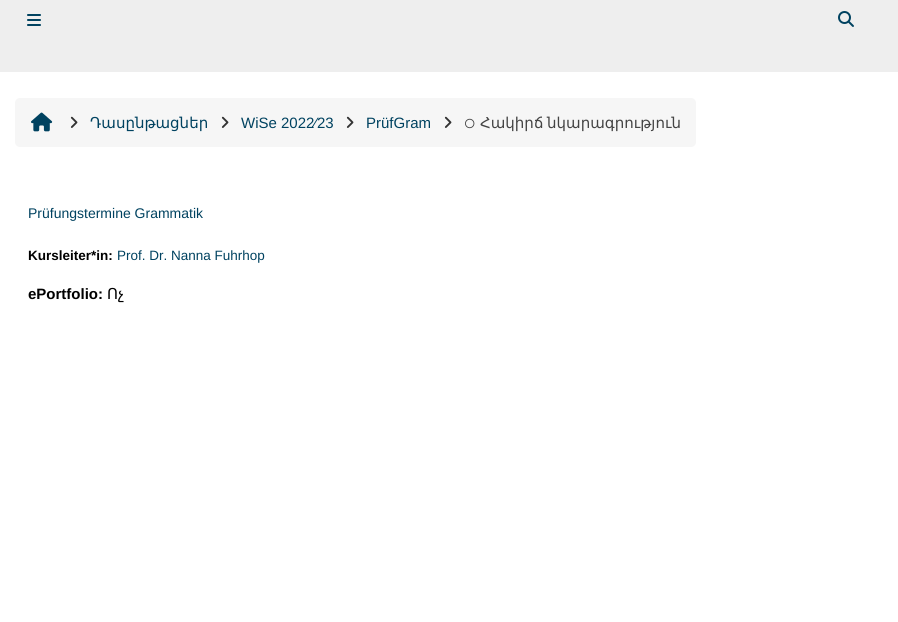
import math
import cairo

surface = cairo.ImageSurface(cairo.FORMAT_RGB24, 898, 622)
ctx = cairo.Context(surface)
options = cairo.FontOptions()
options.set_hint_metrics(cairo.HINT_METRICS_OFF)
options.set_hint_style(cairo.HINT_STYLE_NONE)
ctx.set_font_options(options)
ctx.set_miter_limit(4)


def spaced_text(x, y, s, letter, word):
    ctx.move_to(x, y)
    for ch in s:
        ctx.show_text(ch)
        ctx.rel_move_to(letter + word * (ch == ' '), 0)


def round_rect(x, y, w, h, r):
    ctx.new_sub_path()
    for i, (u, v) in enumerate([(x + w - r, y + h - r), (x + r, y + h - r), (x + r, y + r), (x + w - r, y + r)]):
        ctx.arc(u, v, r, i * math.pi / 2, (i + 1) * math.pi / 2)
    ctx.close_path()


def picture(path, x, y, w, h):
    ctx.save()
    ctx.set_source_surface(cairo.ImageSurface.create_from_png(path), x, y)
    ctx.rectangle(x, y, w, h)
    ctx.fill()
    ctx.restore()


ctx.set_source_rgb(1, 1, 1)
ctx.paint()
ctx.set_source_rgb(0.933, 0.933, 0.933)
ctx.rectangle(0, 0, 898, 72)
ctx.fill()
picture("img1.png", 27, 14, 14, 12)
picture("img2.png", 838, 11, 16, 16)
ctx.set_source_rgb(0.961, 0.961, 0.961)
round_rect(15, 98, 681, 49, 5)
ctx.fill()
picture("img3.png", 31, 112, 22, 20)
picture("img4.png", 70, 116, 8, 12)
ctx.select_font_face("DejaVu Sans")
ctx.set_font_size(15)
ctx.set_source_rgb(0, 0.259, 0.376)
ctx.move_to(90, 128)
ctx.show_text("Դասընթացներ")
picture("img4.png", 221, 116, 8, 12)
ctx.select_font_face("Liberation Sans")
ctx.move_to(241, 128)
ctx.show_text("WiSe 2022∕23")
picture("img4.png", 346, 116, 8, 12)
ctx.move_to(366, 128)
ctx.show_text("PrüfGram")
picture("img4.png", 444, 116, 8, 12)
picture("img5.png", 465, 118, 10, 11)
ctx.select_font_face("DejaVu Sans")
ctx.set_source_rgb(0.267, 0.267, 0.267)
spaced_text(480, 128, "Հակիրճ նկարագրություն", 0, -1)
ctx.select_font_face("Liberation Sans")
ctx.set_font_size(14)
ctx.set_source_rgb(0, 0.259, 0.376)
ctx.move_to(28, 218)
ctx.show_text("Prüfungstermine Grammatik")
ctx.select_font_face("Liberation Sans", cairo.FONT_SLANT_NORMAL, cairo.FONT_WEIGHT_BOLD)
ctx.set_font_size(13.5)
ctx.set_source_rgb(0, 0, 0)
ctx.move_to(28, 260)
ctx.show_text("Kursleiter*in:")
ctx.select_font_face("Liberation Sans")
ctx.set_source_rgb(0, 0.259, 0.376)
ctx.move_to(117, 260)
ctx.show_text("Prof. Dr. Nanna Fuhrhop")
ctx.select_font_face("Liberation Sans", cairo.FONT_SLANT_NORMAL, cairo.FONT_WEIGHT_BOLD)
ctx.set_font_size(15)
ctx.set_source_rgb(0, 0, 0)
ctx.move_to(28, 299)
ctx.show_text("ePortfolio:")
ctx.select_font_face("DejaVu Sans")
ctx.move_to(107, 299)
ctx.show_text("Ոչ")
surface.write_to_png("page.png")
